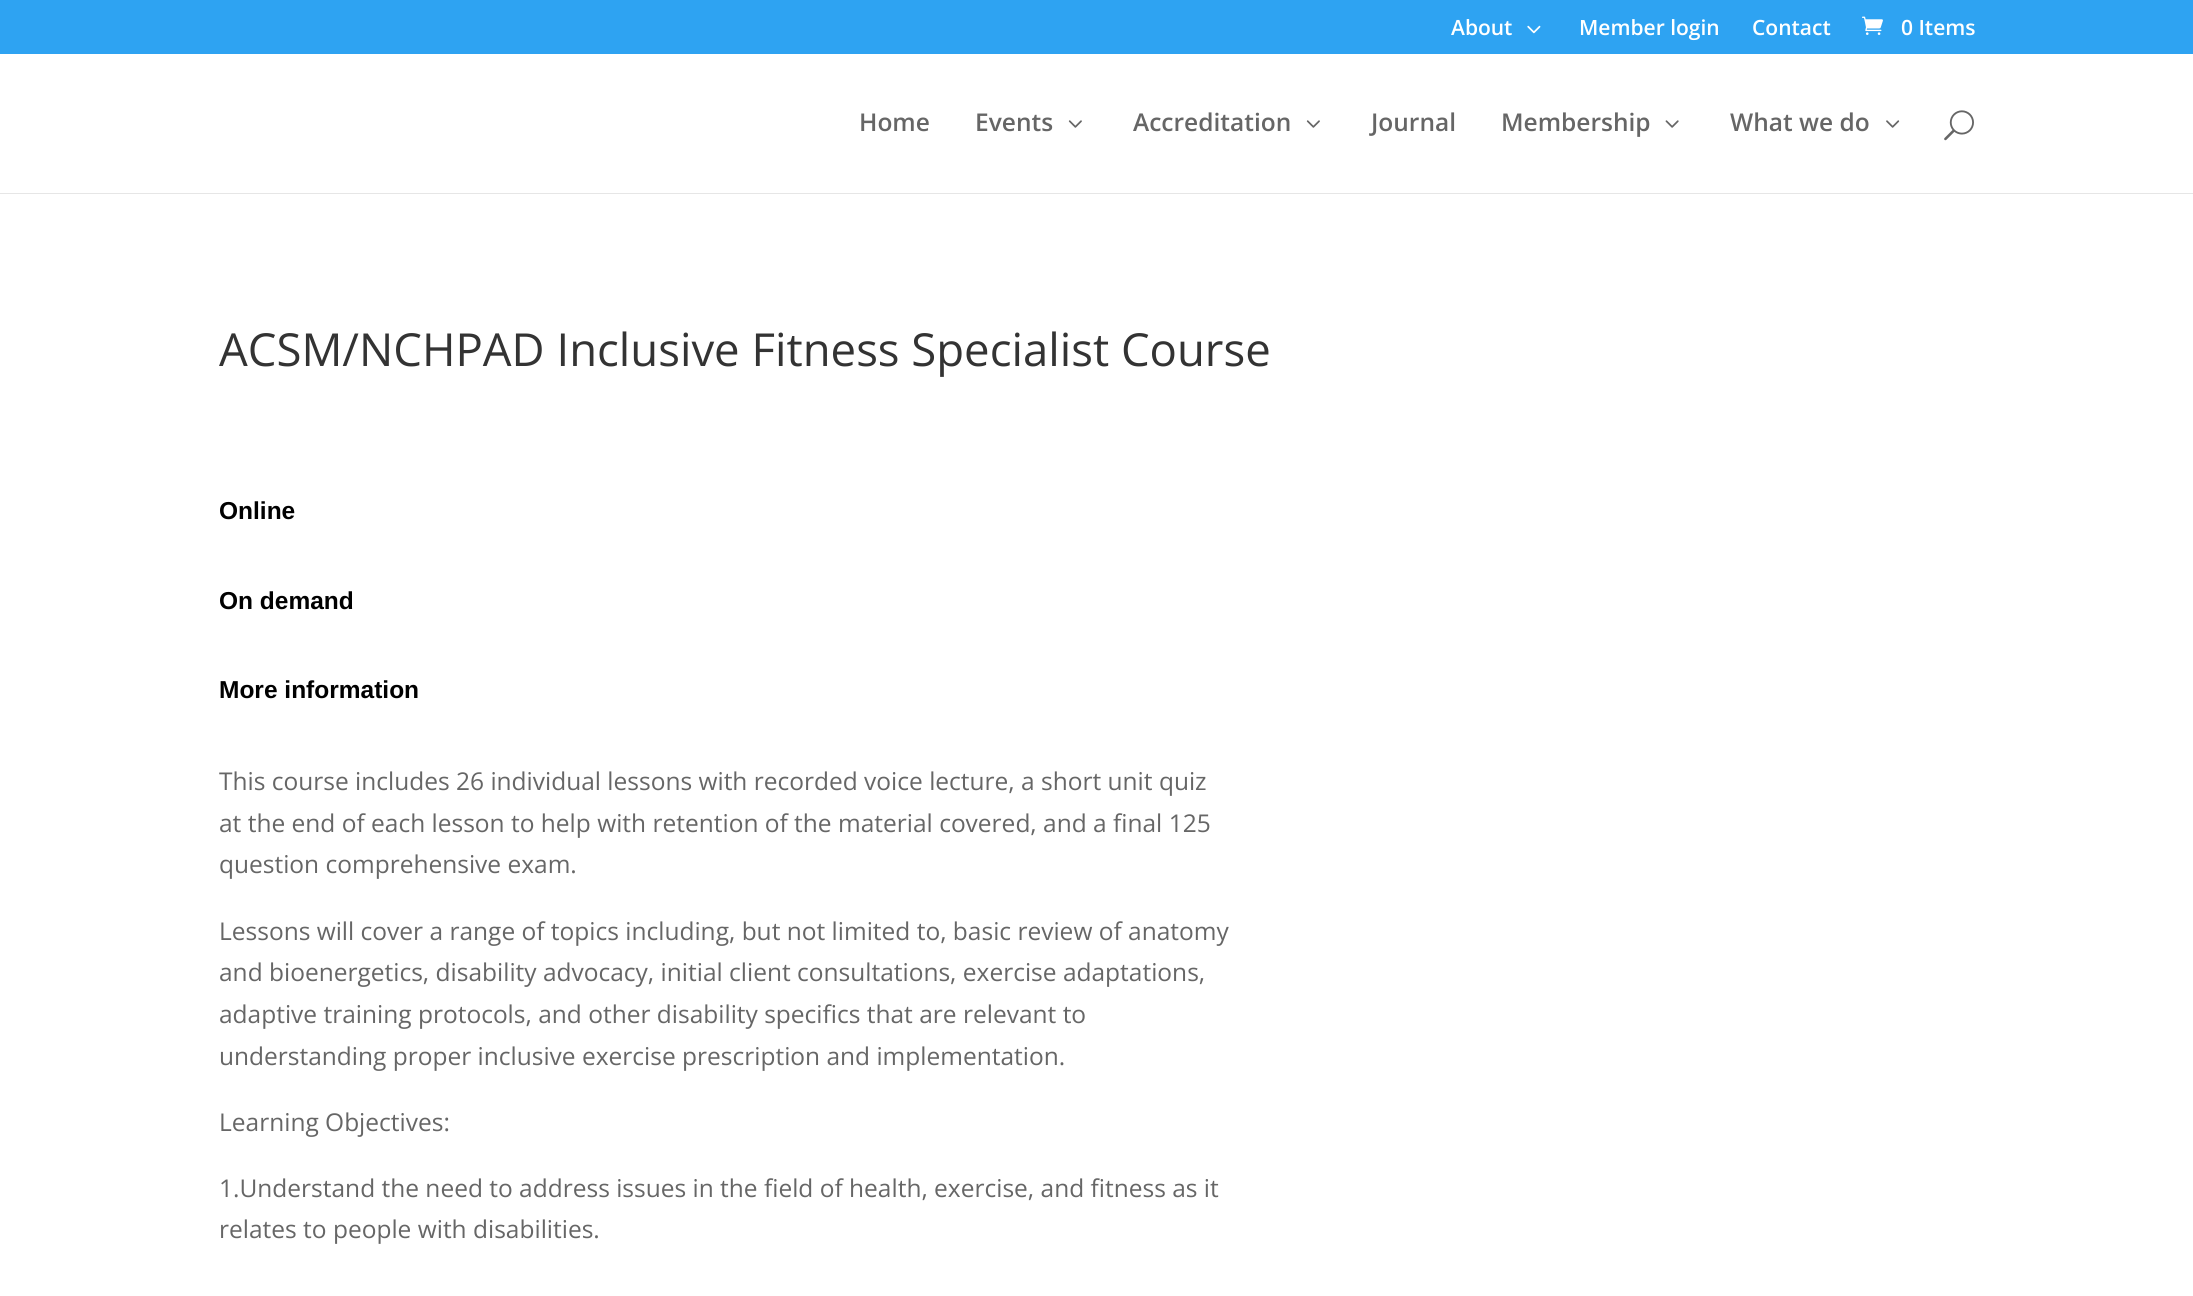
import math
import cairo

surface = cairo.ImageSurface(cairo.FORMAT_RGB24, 2193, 1296)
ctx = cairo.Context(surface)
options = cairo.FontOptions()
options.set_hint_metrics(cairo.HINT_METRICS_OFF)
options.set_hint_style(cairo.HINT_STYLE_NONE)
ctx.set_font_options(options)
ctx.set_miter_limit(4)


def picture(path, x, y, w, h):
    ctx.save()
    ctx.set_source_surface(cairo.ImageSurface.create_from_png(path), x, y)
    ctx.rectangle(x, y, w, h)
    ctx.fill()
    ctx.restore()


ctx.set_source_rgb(1, 1, 1)
ctx.paint()
ctx.set_source_rgb(0.18, 0.639, 0.949)
ctx.rectangle(0, 0, 2193, 54)
ctx.fill()
ctx.select_font_face("Open Sans SemiBold")
ctx.set_font_size(21)
ctx.set_source_rgb(1, 1, 1)
ctx.move_to(1451, 35)
ctx.show_text("About")
picture("img1.png", 1527, 25, 14, 9)
ctx.move_to(1579, 35)
ctx.show_text("Member login")
ctx.move_to(1752, 35)
ctx.show_text("Contact")
picture("img2.png", 1862, 16, 21, 19)
ctx.move_to(1901, 35)
ctx.show_text("0 Items")
ctx.set_source_rgb(0.902, 0.902, 0.902)
ctx.new_path()
ctx.move_to(0, 192)
ctx.line_to(0, 194)
ctx.line_to(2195, 194)
ctx.line_to(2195, 54)
ctx.line_to(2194, 54)
ctx.line_to(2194, 192)
ctx.close_path()
ctx.fill()
ctx.set_source_rgb(1, 1, 1)
ctx.rectangle(0, 192, 2193, 1)
ctx.fill()
ctx.set_font_size(24.5)
ctx.set_source_rgb(0.4, 0.4, 0.4)
ctx.move_to(859, 131)
ctx.show_text("Home")
ctx.move_to(975, 131)
ctx.show_text("Events")
picture("img3.png", 1068, 120, 14, 8)
ctx.move_to(1133, 131)
ctx.show_text("Accreditation")
picture("img3.png", 1306, 120, 14, 8)
ctx.move_to(1371, 131)
ctx.show_text("Journal")
ctx.move_to(1501, 131)
ctx.show_text("Membership")
picture("img4.png", 1665, 120, 14, 8)
ctx.move_to(1730, 131)
ctx.show_text("What we do")
picture("img5.png", 1886, 120, 14, 8)
picture("img6.png", 1944, 110, 30, 31)
ctx.select_font_face("Open Sans")
ctx.set_font_size(45.5)
ctx.set_source_rgb(0.2, 0.2, 0.2)
ctx.move_to(219, 366)
ctx.show_text("ACSM/NCHPAD Inclusive Fitness Specialist Course")
ctx.select_font_face("Liberation Sans", cairo.FONT_SLANT_NORMAL, cairo.FONT_WEIGHT_BOLD)
ctx.set_font_size(24.5)
ctx.set_source_rgb(0, 0, 0)
ctx.move_to(219, 519)
ctx.show_text("Online")
ctx.move_to(219, 609)
ctx.show_text("On demand")
ctx.move_to(219, 698)
ctx.show_text("More information")
ctx.select_font_face("Open Sans")
ctx.set_source_rgb(0.4, 0.4, 0.4)
ctx.move_to(219, 790)
ctx.show_text("This course includes 26 individual lessons with recorded voice lecture, a short unit quiz")
ctx.move_to(219, 832)
ctx.show_text("at the end of each lesson to help with retention of the material covered, and a final 125")
ctx.move_to(219, 873)
ctx.show_text("question comprehensive exam.")
ctx.move_to(219, 940)
ctx.show_text("Lessons will cover a range of topics including, but not limited to, basic review of anatomy")
ctx.move_to(219, 981)
ctx.show_text("and bioenergetics, disability advocacy, initial client consultations, exercise adaptations,")
ctx.move_to(219, 1023)
ctx.show_text("adaptive training protocols, and other disability specifics that are relevant to")
ctx.move_to(219, 1065)
ctx.show_text("understanding proper inclusive exercise prescription and implementation.")
ctx.move_to(219, 1131)
ctx.show_text("Learning Objectives:")
ctx.move_to(219, 1197)
ctx.show_text("1.Understand the need to address issues in the field of health, exercise, and fitness as it")
ctx.move_to(219, 1238)
ctx.show_text("relates to people with disabilities.")
surface.write_to_png("page.png")
